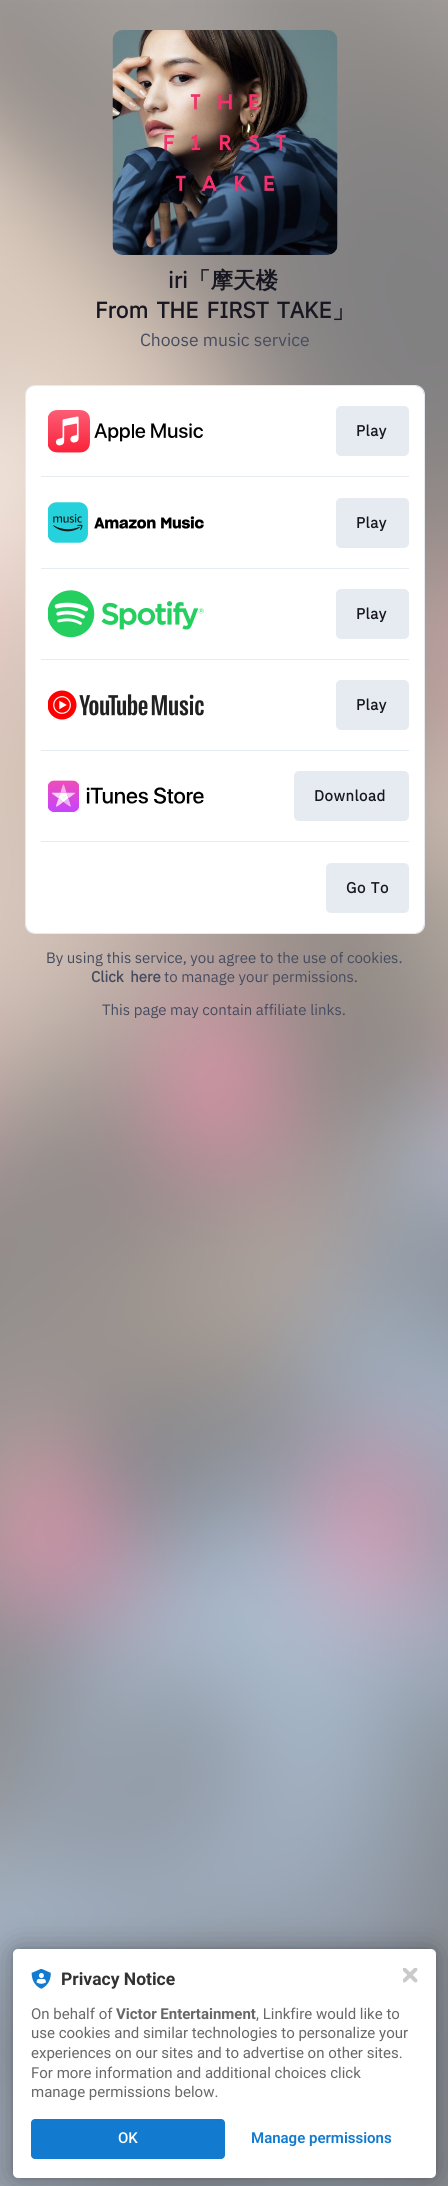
import math
import cairo

surface = cairo.ImageSurface(cairo.FORMAT_RGB24, 448, 2186)
ctx = cairo.Context(surface)
options = cairo.FontOptions()
options.set_hint_metrics(cairo.HINT_METRICS_OFF)
options.set_hint_style(cairo.HINT_STYLE_NONE)
ctx.set_font_options(options)
ctx.set_miter_limit(4)


def spaced_text(x, y, s, letter, word):
    ctx.move_to(x, y)
    for ch in s:
        ctx.show_text(ch)
        ctx.rel_move_to(letter + word * (ch == ' '), 0)


def round_rect(x, y, w, h, r):
    ctx.new_sub_path()
    for i, (u, v) in enumerate([(x + w - r, y + h - r), (x + r, y + h - r), (x + r, y + r), (x + w - r, y + r)]):
        ctx.arc(u, v, r, i * math.pi / 2, (i + 1) * math.pi / 2)
    ctx.close_path()


def shadow(x, y, w, h, r, blur, alpha):
    ctx.push_group_with_content(cairo.CONTENT_ALPHA)
    ctx.set_operator(cairo.OPERATOR_SOURCE)
    for i in range(15, -16, -2):
        e = blur * i / 6
        if min(w, h) + 2 * e > 0:
            ctx.set_source_rgba(0, 0, 0, alpha * math.erfc((i - 1) / 8.5) / 2)
            round_rect(x - e, y - e, w + 2 * e, h + 2 * e, max(0, min(r + e + blur * .6, min(w, h) / 2 + e)))
            ctx.fill()
    ctx.mask(ctx.pop_group())


def picture(path, x, y, w, h):
    ctx.save()
    ctx.set_source_surface(cairo.ImageSurface.create_from_png(path), x, y)
    ctx.rectangle(x, y, w, h)
    ctx.fill()
    ctx.restore()


ctx.set_source_rgb(1, 1, 1)
ctx.paint()
picture("img1.png", 0, 0, 448, 2186)
picture("img2.png", 112, 30, 226, 225)
ctx.select_font_face("IBM Plex Sans", cairo.FONT_SLANT_NORMAL, cairo.FONT_WEIGHT_BOLD)
ctx.set_font_size(22.5)
ctx.set_source_rgb(0.094, 0.09, 0.129)
ctx.move_to(168, 288)
ctx.show_text("iri")
ctx.select_font_face("WenQuanYi Zen Hei", cairo.FONT_SLANT_NORMAL, cairo.FONT_WEIGHT_BOLD)
ctx.move_to(188, 288)
ctx.show_text("「摩天楼")
ctx.select_font_face("IBM Plex Sans", cairo.FONT_SLANT_NORMAL, cairo.FONT_WEIGHT_BOLD)
spaced_text(95, 318, "From THE FIRST TAKE", 0, 3)
ctx.select_font_face("WenQuanYi Zen Hei", cairo.FONT_SLANT_NORMAL, cairo.FONT_WEIGHT_BOLD)
ctx.move_to(332, 318)
ctx.show_text("」")
ctx.select_font_face("IBM Plex Sans")
ctx.set_font_size(17.5)
ctx.set_source_rgb(0.271, 0.294, 0.373)
ctx.move_to(140, 346)
ctx.show_text("Choose music service")
round_rect(25.5, 385.5, 399, 548, 9.5)
ctx.set_source_rgb(0.902, 0.918, 0.949)
ctx.set_line_width(1)
ctx.stroke()
ctx.set_source_rgb(1, 1, 1)
round_rect(26, 386, 398, 547, 9)
ctx.fill()
picture("img3.png", 48, 410, 155, 43)
ctx.set_source_rgb(0.902, 0.918, 0.949)
round_rect(336, 406, 73, 50, 5)
ctx.fill()
ctx.select_font_face("IBM Plex Sans", cairo.FONT_SLANT_NORMAL, cairo.FONT_WEIGHT_BOLD)
ctx.set_font_size(15)
ctx.set_source_rgb(0.094, 0.09, 0.129)
spaced_text(356, 436, "Play", 0.5, 0)
ctx.set_source_rgb(0.902, 0.918, 0.949)
ctx.rectangle(41, 476, 368, 1)
ctx.fill()
picture("img4.png", 48, 502, 156, 41)
round_rect(336, 498, 73, 50, 5)
ctx.fill()
ctx.set_source_rgb(0.094, 0.09, 0.129)
spaced_text(356, 528, "Play", 0.5, 0)
ctx.set_source_rgb(0.902, 0.918, 0.949)
ctx.rectangle(41, 568, 368, 1)
ctx.fill()
picture("img5.png", 48, 590, 156, 48)
round_rect(336, 589, 73, 50, 5)
ctx.fill()
ctx.set_source_rgb(0.094, 0.09, 0.129)
spaced_text(356, 619, "Play", 0.5, 0)
ctx.set_source_rgb(0.902, 0.918, 0.949)
ctx.rectangle(41, 659, 368, 1)
ctx.fill()
picture("img6.png", 48, 690, 156, 30)
round_rect(336, 680, 73, 50, 5)
ctx.fill()
ctx.set_source_rgb(0.094, 0.09, 0.129)
spaced_text(356, 710, "Play", 0.5, 0)
ctx.set_source_rgb(0.902, 0.918, 0.949)
ctx.rectangle(41, 750, 368, 1)
ctx.fill()
picture("img7.png", 48, 780, 156, 32)
round_rect(294, 771, 115, 50, 5)
ctx.fill()
ctx.set_source_rgb(0.094, 0.09, 0.129)
spaced_text(314, 801, "Download", 0.5, 0)
ctx.set_source_rgb(0.902, 0.918, 0.949)
ctx.rectangle(41, 841, 368, 1)
ctx.fill()
round_rect(326, 863, 83, 50, 5)
ctx.fill()
ctx.set_source_rgb(0.094, 0.09, 0.129)
spaced_text(346, 893, "Go To", 0.5, 1)
ctx.select_font_face("IBM Plex Sans")
ctx.set_source_rgb(0.271, 0.294, 0.373)
ctx.move_to(46, 963)
ctx.show_text("By using this service, you agree to the use of cookies.")
ctx.select_font_face("IBM Plex Sans", cairo.FONT_SLANT_NORMAL, cairo.FONT_WEIGHT_BOLD)
spaced_text(91, 982, "Click here", 0, 3)
ctx.select_font_face("IBM Plex Sans")
ctx.move_to(164, 982)
ctx.show_text("to manage your permissions.")
ctx.move_to(102, 1015)
ctx.show_text("This page may contain affiliate links.")
ctx.set_source_rgb(0, 0, 0)
shadow(13, 1949, 423, 229, 5, 2.5, 0.12)
shadow(13, 1949, 423, 229, 5, 15, 0.3)
ctx.set_source_rgb(1, 1, 1)
round_rect(13, 1949, 423, 229, 5)
ctx.fill()
picture("img8.png", 31, 1969, 20, 20)
ctx.select_font_face("Roboto", cairo.FONT_SLANT_NORMAL, cairo.FONT_WEIGHT_BOLD)
ctx.set_font_size(17.5)
ctx.set_source_rgb(0.196, 0.196, 0.196)
ctx.move_to(61, 1985)
ctx.show_text("Privacy Notice")
ctx.select_font_face("Roboto")
ctx.set_font_size(15)
ctx.set_source_rgb(0.408, 0.408, 0.408)
ctx.move_to(31, 2019)
ctx.show_text("On behalf of")
ctx.select_font_face("Roboto", cairo.FONT_SLANT_NORMAL, cairo.FONT_WEIGHT_BOLD)
ctx.move_to(116, 2019)
ctx.show_text("Victor Entertainment")
ctx.select_font_face("Roboto")
ctx.move_to(256, 2019)
ctx.show_text(", Linkfire would like to")
ctx.move_to(31, 2038)
ctx.show_text("use cookies and similar technologies to personalize your")
ctx.move_to(31, 2058)
ctx.show_text("experiences on our sites and to advertise on other sites.")
ctx.move_to(31, 2078)
ctx.show_text("For more information and additional choices click")
ctx.move_to(31, 2097)
ctx.show_text("manage permissions below.")
ctx.set_source_rgb(0.075, 0.482, 0.812)
round_rect(31, 2119, 194, 40, 4)
ctx.fill()
ctx.select_font_face("Roboto Medium")
ctx.set_source_rgb(1, 1, 1)
ctx.move_to(118, 2143)
ctx.show_text("OK")
ctx.select_font_face("Roboto SemiBold")
ctx.set_source_rgb(0.075, 0.482, 0.812)
ctx.move_to(251, 2143)
ctx.show_text("Manage permissions")
picture("img9.png", 403, 1968, 15, 15)
surface.write_to_png("page.png")
